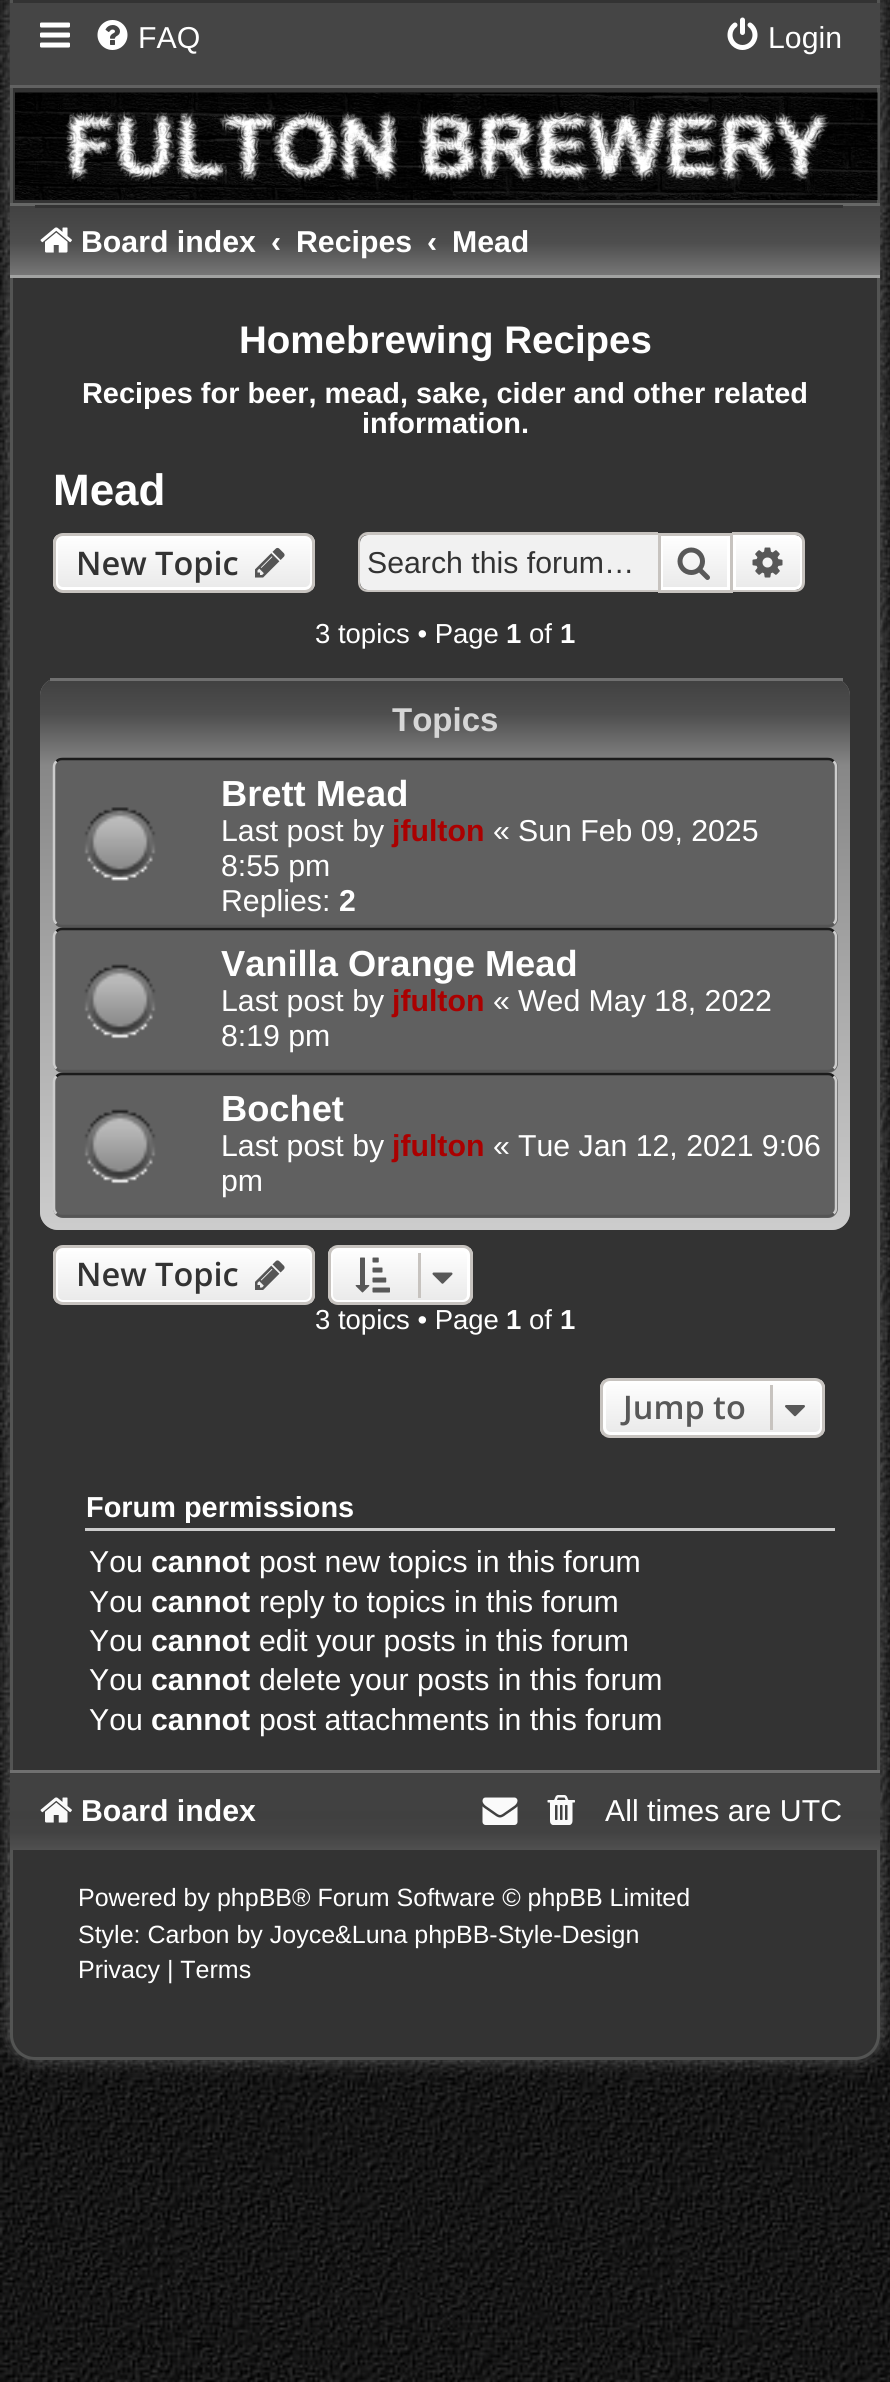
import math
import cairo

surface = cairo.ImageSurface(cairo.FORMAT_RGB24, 890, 2382)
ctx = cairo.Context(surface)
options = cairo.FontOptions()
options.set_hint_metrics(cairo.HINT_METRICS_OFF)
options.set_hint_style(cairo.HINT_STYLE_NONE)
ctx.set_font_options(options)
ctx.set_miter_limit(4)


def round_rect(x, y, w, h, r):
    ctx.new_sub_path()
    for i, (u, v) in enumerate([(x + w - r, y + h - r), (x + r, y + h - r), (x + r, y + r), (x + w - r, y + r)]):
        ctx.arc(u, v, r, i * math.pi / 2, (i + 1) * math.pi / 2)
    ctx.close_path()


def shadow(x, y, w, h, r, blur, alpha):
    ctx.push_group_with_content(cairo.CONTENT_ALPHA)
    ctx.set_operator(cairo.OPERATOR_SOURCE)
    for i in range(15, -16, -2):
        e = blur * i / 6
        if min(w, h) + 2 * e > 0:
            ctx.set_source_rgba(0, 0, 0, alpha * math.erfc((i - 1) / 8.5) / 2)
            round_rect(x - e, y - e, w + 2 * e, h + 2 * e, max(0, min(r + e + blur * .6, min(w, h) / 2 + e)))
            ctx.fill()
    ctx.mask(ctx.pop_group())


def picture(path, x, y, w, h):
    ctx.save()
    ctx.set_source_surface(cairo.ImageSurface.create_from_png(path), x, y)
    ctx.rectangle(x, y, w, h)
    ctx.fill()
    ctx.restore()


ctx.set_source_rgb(1, 1, 1)
ctx.paint()
picture("img1.png", 0, 2098, 890, 284)
picture("img2.png", 0, 0, 890, 2098)
shadow(5, -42, 880, 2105, 30, 7.5, 0.2)
ctx.set_source_rgb(0.2, 0.2, 0.2)
ctx.new_path()
ctx.move_to(11.5, -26.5)
ctx.line_to(878.5, -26.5)
ctx.line_to(878.5, 2035)
ctx.curve_to(878.5, 2048, 868, 2058.5, 855, 2058.5)
ctx.line_to(35, 2058.5)
ctx.curve_to(22, 2058.5, 11.5, 2048, 11.5, 2035)
ctx.close_path()
ctx.fill_preserve()
ctx.set_source_rgb(0.325, 0.329, 0.325)
ctx.set_line_width(3)
ctx.stroke()
ctx.set_source_rgb(0.271, 0.271, 0.271)
ctx.rectangle(10, 3, 870, 82)
ctx.fill()
picture("img3.png", 40, 22, 30, 26)
picture("img4.png", 97, 20, 31, 30)
ctx.select_font_face("Liberation Sans")
ctx.set_font_size(30.25)
ctx.set_source_rgb(1, 1, 1)
ctx.move_to(138, 48)
ctx.show_text("FAQ")
picture("img5.png", 727, 17, 31, 33)
ctx.move_to(768, 48)
ctx.show_text("Login")
ctx.set_source_rgb(0.38, 0.38, 0.38)
ctx.rectangle(10, 85, 870, 3)
ctx.fill()
picture("img6.png", 15, 92, 863, 108)
gradient = cairo.LinearGradient(445, 205, 445, 314)
gradient.add_color_stop_rgba(0, 0.255, 0.255, 0.255, 1)
gradient.add_color_stop_rgba(0.35, 0.306, 0.306, 0.306, 1)
gradient.add_color_stop_rgba(0.76, 0.529, 0.529, 0.529, 1)
gradient.add_color_stop_rgba(1, 0.98, 0.98, 0.98, 1)
ctx.set_source(gradient)
ctx.rectangle(10, 206, 870, 69)
ctx.fill()
ctx.set_source_rgb(0.4, 0.404, 0.4)
ctx.rectangle(10, 203, 870, 3)
ctx.fill()
ctx.set_source_rgb(0.631, 0.635, 0.631)
ctx.rectangle(10, 275, 870, 3)
ctx.fill()
ctx.set_source_rgb(0.2, 0.2, 0.2)
ctx.rectangle(35, 205, 808, 3)
ctx.fill()
picture("img7.png", 40, 227, 32, 26)
ctx.select_font_face("Liberation Sans", cairo.FONT_SLANT_NORMAL, cairo.FONT_WEIGHT_BOLD)
ctx.set_source_rgb(1, 1, 1)
ctx.move_to(81, 252)
ctx.show_text("Board index")
ctx.move_to(271, 252)
ctx.show_text("‹")
ctx.move_to(296, 252)
ctx.show_text("Recipes")
ctx.move_to(427, 252)
ctx.show_text("‹")
ctx.move_to(452, 252)
ctx.show_text("Mead")
ctx.set_font_size(38.5)
ctx.move_to(239, 353)
ctx.show_text("Homebrewing Recipes")
ctx.set_font_size(28.9)
ctx.move_to(82, 403)
ctx.show_text("Recipes for beer, mead, sake, cider and other related")
ctx.move_to(362, 433)
ctx.show_text("information.")
ctx.set_font_size(44)
ctx.move_to(53, 505)
ctx.show_text("Mead")
ctx.save()
round_rect(53, 533, 262, 60, 10)
ctx.clip()
gradient = cairo.LinearGradient(184, 535, 184, 590)
gradient.add_color_stop_rgba(0, 1, 1, 1, 1)
gradient.add_color_stop_rgba(1, 0.914, 0.914, 0.914, 1)
ctx.set_source(gradient)
ctx.rectangle(53, 535, 262, 55)
ctx.fill()
ctx.restore()
round_rect(56.5, 536.5, 255, 52, 6.5)
ctx.stroke()
round_rect(54.5, 534.5, 259, 57, 8.5)
ctx.set_source_rgb(0.78, 0.765, 0.749)
ctx.stroke()
ctx.select_font_face("Open Sans SemiBold")
ctx.set_font_size(32.5)
ctx.set_source_rgb(0.2, 0.2, 0.2)
ctx.move_to(76, 575)
ctx.show_text("New Topic")
picture("img8.png", 255, 547, 30, 31)
ctx.set_source_rgb(0.945, 0.945, 0.945)
ctx.new_path()
ctx.move_to(368, 535)
ctx.line_to(658, 535)
ctx.line_to(658, 590)
ctx.line_to(368, 590)
ctx.curve_to(363.5, 590, 360, 586.5, 360, 582)
ctx.line_to(360, 543)
ctx.curve_to(360, 538.5, 363.5, 535, 368, 535)
ctx.close_path()
ctx.fill()
ctx.set_source_rgb(0.78, 0.765, 0.749)
ctx.set_fill_rule(cairo.FILL_RULE_EVEN_ODD)
ctx.new_path()
ctx.move_to(368, 532)
ctx.line_to(658, 532)
ctx.line_to(658, 592)
ctx.line_to(368, 592)
ctx.curve_to(362, 592, 358, 588, 358, 582)
ctx.line_to(358, 542)
ctx.curve_to(358, 537, 362, 532, 368, 532)
ctx.close_path()
ctx.move_to(368, 535)
ctx.line_to(658, 535)
ctx.line_to(658, 590)
ctx.line_to(368, 590)
ctx.curve_to(363, 590, 360, 587, 360, 582)
ctx.line_to(360, 542)
ctx.curve_to(360, 538, 363, 535, 368, 535)
ctx.close_path()
ctx.fill()
ctx.select_font_face("Liberation Sans")
ctx.set_font_size(30.25)
ctx.set_source_rgb(0.2, 0.2, 0.2)
ctx.move_to(367, 573)
ctx.show_text("Search this forum…")
gradient = cairo.LinearGradient(695, 535, 695, 590)
gradient.add_color_stop_rgba(0, 1, 1, 1, 1)
gradient.add_color_stop_rgba(1, 0.914, 0.914, 0.914, 1)
ctx.set_source(gradient)
ctx.rectangle(663, 538, 64, 49)
ctx.fill()
ctx.rectangle(661.5, 536.5, 67, 52)
ctx.set_source_rgb(1, 1, 1)
ctx.stroke()
ctx.rectangle(659.5, 534.5, 72, 57)
ctx.set_source_rgb(0.78, 0.765, 0.749)
ctx.stroke()
picture("img9.png", 677, 547, 33, 33)
gradient = cairo.LinearGradient(768, 535, 768, 590)
gradient.add_color_stop_rgba(0, 1, 1, 1, 1)
gradient.add_color_stop_rgba(1, 0.914, 0.914, 0.914, 1)
ctx.set_source(gradient)
ctx.new_path()
ctx.move_to(734.5, 536.5)
ctx.line_to(795, 536.5)
ctx.curve_to(798.5, 536.5, 801.5, 539.5, 801.5, 543)
ctx.line_to(801.5, 582)
ctx.curve_to(801.5, 585.5, 798.5, 588.5, 795, 588.5)
ctx.line_to(734.5, 588.5)
ctx.close_path()
ctx.fill_preserve()
ctx.set_source_rgb(1, 1, 1)
ctx.stroke()
ctx.set_source_rgb(0.78, 0.765, 0.749)
ctx.new_path()
ctx.move_to(732, 532)
ctx.line_to(795, 532)
ctx.curve_to(801, 532, 805, 537, 805, 542)
ctx.line_to(805, 582)
ctx.curve_to(805, 588, 801, 592, 795, 592)
ctx.line_to(732, 592)
ctx.close_path()
ctx.move_to(732, 535)
ctx.line_to(795, 535)
ctx.curve_to(799, 535, 802, 538, 802, 542)
ctx.line_to(802, 582)
ctx.curve_to(802, 587, 799, 590, 795, 590)
ctx.line_to(732, 590)
ctx.close_path()
ctx.fill()
picture("img10.png", 752, 547, 31, 31)
ctx.set_font_size(27.5)
ctx.set_source_rgb(1, 1, 1)
ctx.move_to(315, 643)
ctx.show_text("3 topics • Page")
ctx.select_font_face("Liberation Sans", cairo.FONT_SLANT_NORMAL, cairo.FONT_WEIGHT_BOLD)
ctx.move_to(506, 643)
ctx.show_text("1")
ctx.select_font_face("Liberation Sans")
ctx.move_to(529, 643)
ctx.show_text("of")
ctx.select_font_face("Liberation Sans", cairo.FONT_SLANT_NORMAL, cairo.FONT_WEIGHT_BOLD)
ctx.move_to(560, 643)
ctx.show_text("1")
ctx.set_source_rgb(0.541, 0.541, 0.541)
round_rect(40, 678, 810, 552, 18)
ctx.fill()
ctx.save()
ctx.set_fill_rule(cairo.FILL_RULE_WINDING)
round_rect(40, 678, 810, 552, 18)
ctx.clip()
gradient = cairo.LinearGradient(445, 680, 445, 1533)
gradient.add_color_stop_rgba(0, 0.255, 0.255, 0.255, 1)
gradient.add_color_stop_rgba(0.04, 0.306, 0.306, 0.306, 1)
gradient.add_color_stop_rgba(0.1, 0.529, 0.529, 0.529, 1)
gradient.add_color_stop_rgba(1, 0.98, 0.98, 0.98, 1)
ctx.set_source(gradient)
ctx.new_path()
ctx.move_to(40, 680)
ctx.line_to(850, 680)
ctx.line_to(850, 1212)
ctx.curve_to(850, 1222, 842, 1230, 832, 1230)
ctx.line_to(58, 1230)
ctx.curve_to(48, 1230, 40, 1222, 40, 1212)
ctx.close_path()
ctx.fill()
ctx.restore()
ctx.set_source_rgb(0.439, 0.439, 0.439)
ctx.rectangle(50, 678, 793, 3)
ctx.fill()
ctx.set_font_size(33)
ctx.set_source_rgb(0.839, 0.839, 0.839)
ctx.move_to(392, 731)
ctx.show_text("Topics")
ctx.set_source_rgb(0.376, 0.376, 0.376)
round_rect(53, 758, 785, 170, 10)
ctx.fill()
ctx.new_path()
ctx.move_to(56.5, 761.5)
ctx.curve_to(58, 759.5, 60, 759, 62.5, 759)
ctx.line_to(827.5, 759)
ctx.curve_to(830, 759, 832, 759.5, 833.5, 761.5)
ctx.set_source_rgb(0.106, 0.106, 0.106)
ctx.set_line_width(2.5)
ctx.stroke()
ctx.new_path()
ctx.move_to(833.5, 761.5)
ctx.curve_to(835.5, 763, 836, 765, 836, 767.5)
ctx.line_to(836, 917.5)
ctx.curve_to(836, 920, 835.5, 922, 833.5, 923.5)
ctx.set_source_rgb(0.8, 0.8, 0.8)
ctx.stroke()
ctx.new_path()
ctx.move_to(833.5, 923.5)
ctx.curve_to(832, 925.5, 830, 926, 827.5, 926)
ctx.line_to(62.5, 926)
ctx.curve_to(60, 926, 58, 925.5, 56.5, 923.5)
ctx.set_source_rgb(0.333, 0.333, 0.333)
ctx.stroke()
ctx.new_path()
ctx.move_to(56.5, 923.5)
ctx.curve_to(54.5, 922, 54, 920, 54, 917.5)
ctx.line_to(54, 767.5)
ctx.curve_to(54, 765, 54.5, 763, 56.5, 761.5)
ctx.set_source_rgb(0.8, 0.8, 0.8)
ctx.stroke()
picture("img11.png", 84, 807, 72, 74)
ctx.set_font_size(36.25)
ctx.set_source_rgb(1, 1, 1)
ctx.move_to(221, 806)
ctx.show_text("Brett Mead")
ctx.select_font_face("Liberation Sans")
ctx.set_font_size(30.25)
ctx.move_to(221, 841)
ctx.show_text("Last post by")
ctx.select_font_face("Liberation Sans", cairo.FONT_SLANT_NORMAL, cairo.FONT_WEIGHT_BOLD)
ctx.set_source_rgb(0.667, 0, 0)
ctx.move_to(392, 841)
ctx.show_text("jfulton")
ctx.select_font_face("Liberation Sans")
ctx.set_source_rgb(1, 1, 1)
ctx.move_to(493, 841)
ctx.show_text("«")
ctx.move_to(518, 841)
ctx.show_text("Sun Feb 09, 2025")
ctx.move_to(221, 876)
ctx.show_text("8:55 pm")
ctx.move_to(221, 911)
ctx.show_text("Replies:")
ctx.select_font_face("Liberation Sans", cairo.FONT_SLANT_NORMAL, cairo.FONT_WEIGHT_BOLD)
ctx.move_to(339, 911)
ctx.show_text("2")
ctx.set_source_rgb(0.376, 0.376, 0.376)
round_rect(53, 928, 785, 145, 10)
ctx.fill()
ctx.new_path()
ctx.move_to(56.5, 931.5)
ctx.curve_to(58, 929.5, 60, 929, 62.5, 929)
ctx.line_to(827.5, 929)
ctx.curve_to(830, 929, 832, 929.5, 833.5, 931.5)
ctx.set_source_rgb(0.106, 0.106, 0.106)
ctx.stroke()
ctx.new_path()
ctx.move_to(833.5, 931.5)
ctx.curve_to(835.5, 933, 836, 935, 836, 937.5)
ctx.line_to(836, 1062.5)
ctx.curve_to(836, 1065, 835.5, 1067, 833.5, 1068.5)
ctx.set_source_rgb(0.8, 0.8, 0.8)
ctx.stroke()
ctx.new_path()
ctx.move_to(833.5, 1068.5)
ctx.curve_to(832, 1070.5, 830, 1071, 827.5, 1071)
ctx.line_to(62.5, 1071)
ctx.curve_to(60, 1071, 58, 1070.5, 56.5, 1068.5)
ctx.set_source_rgb(0.333, 0.333, 0.333)
ctx.stroke()
ctx.new_path()
ctx.move_to(56.5, 1068.5)
ctx.curve_to(54.5, 1067, 54, 1065, 54, 1062.5)
ctx.line_to(54, 937.5)
ctx.curve_to(54, 935, 54.5, 933, 56.5, 931.5)
ctx.set_source_rgb(0.8, 0.8, 0.8)
ctx.stroke()
picture("img12.png", 84, 964, 72, 75)
ctx.set_font_size(36.25)
ctx.set_source_rgb(1, 1, 1)
ctx.move_to(221, 976)
ctx.show_text("Vanilla Orange Mead")
ctx.select_font_face("Liberation Sans")
ctx.set_font_size(30.25)
ctx.move_to(221, 1011)
ctx.show_text("Last post by")
ctx.select_font_face("Liberation Sans", cairo.FONT_SLANT_NORMAL, cairo.FONT_WEIGHT_BOLD)
ctx.set_source_rgb(0.667, 0, 0)
ctx.move_to(392, 1011)
ctx.show_text("jfulton")
ctx.select_font_face("Liberation Sans")
ctx.set_source_rgb(1, 1, 1)
ctx.move_to(493, 1011)
ctx.show_text("«")
ctx.move_to(518, 1011)
ctx.show_text("Wed May 18, 2022")
ctx.move_to(221, 1046)
ctx.show_text("8:19 pm")
ctx.set_source_rgb(0.376, 0.376, 0.376)
round_rect(53, 1073, 785, 145, 10)
ctx.fill()
ctx.new_path()
ctx.move_to(56.5, 1076.5)
ctx.curve_to(58, 1074.5, 60, 1074, 62.5, 1074)
ctx.line_to(827.5, 1074)
ctx.curve_to(830, 1074, 832, 1074.5, 833.5, 1076.5)
ctx.set_source_rgb(0.106, 0.106, 0.106)
ctx.stroke()
ctx.new_path()
ctx.move_to(833.5, 1076.5)
ctx.curve_to(835.5, 1078, 836, 1080, 836, 1082.5)
ctx.line_to(836, 1207.5)
ctx.curve_to(836, 1210, 835.5, 1212, 833.5, 1213.5)
ctx.set_source_rgb(0.8, 0.8, 0.8)
ctx.stroke()
ctx.new_path()
ctx.move_to(833.5, 1213.5)
ctx.curve_to(832, 1215.5, 830, 1216, 827.5, 1216)
ctx.line_to(62.5, 1216)
ctx.curve_to(60, 1216, 58, 1215.5, 56.5, 1213.5)
ctx.set_source_rgb(0.333, 0.333, 0.333)
ctx.stroke()
ctx.new_path()
ctx.move_to(56.5, 1213.5)
ctx.curve_to(54.5, 1212, 54, 1210, 54, 1207.5)
ctx.line_to(54, 1082.5)
ctx.curve_to(54, 1080, 54.5, 1078, 56.5, 1076.5)
ctx.set_source_rgb(0.8, 0.8, 0.8)
ctx.stroke()
picture("img12.png", 84, 1109, 72, 75)
ctx.select_font_face("Liberation Sans", cairo.FONT_SLANT_NORMAL, cairo.FONT_WEIGHT_BOLD)
ctx.set_font_size(36.25)
ctx.set_source_rgb(1, 1, 1)
ctx.move_to(221, 1121)
ctx.show_text("Bochet")
ctx.select_font_face("Liberation Sans")
ctx.set_font_size(30.25)
ctx.move_to(221, 1156)
ctx.show_text("Last post by")
ctx.select_font_face("Liberation Sans", cairo.FONT_SLANT_NORMAL, cairo.FONT_WEIGHT_BOLD)
ctx.set_source_rgb(0.667, 0, 0)
ctx.move_to(392, 1156)
ctx.show_text("jfulton")
ctx.select_font_face("Liberation Sans")
ctx.set_source_rgb(1, 1, 1)
ctx.move_to(493, 1156)
ctx.show_text("«")
ctx.move_to(518, 1156)
ctx.show_text("Tue Jan 12, 2021 9:06")
ctx.move_to(221, 1191)
ctx.show_text("pm")
ctx.save()
ctx.set_fill_rule(cairo.FILL_RULE_WINDING)
round_rect(53, 1245, 262, 60, 10)
ctx.clip()
gradient = cairo.LinearGradient(184, 1248, 184, 1303)
gradient.add_color_stop_rgba(0, 1, 1, 1, 1)
gradient.add_color_stop_rgba(1, 0.914, 0.914, 0.914, 1)
ctx.set_source(gradient)
ctx.rectangle(53, 1248, 262, 55)
ctx.fill()
ctx.restore()
round_rect(56.5, 1249.5, 255, 52, 6.5)
ctx.set_line_width(3)
ctx.stroke()
round_rect(54.5, 1246.5, 259, 57, 8.5)
ctx.set_source_rgb(0.78, 0.765, 0.749)
ctx.stroke()
ctx.select_font_face("Open Sans SemiBold")
ctx.set_font_size(32.5)
ctx.set_source_rgb(0.2, 0.2, 0.2)
ctx.move_to(76, 1286)
ctx.show_text("New Topic")
picture("img13.png", 255, 1260, 30, 30)
ctx.save()
ctx.set_fill_rule(cairo.FILL_RULE_WINDING)
round_rect(328, 1245, 145, 60, 10)
ctx.clip()
gradient = cairo.LinearGradient(400, 1248, 400, 1303)
gradient.add_color_stop_rgba(0, 1, 1, 1, 1)
gradient.add_color_stop_rgba(1, 0.914, 0.914, 0.914, 1)
ctx.set_source(gradient)
ctx.rectangle(328, 1248, 145, 55)
ctx.fill()
ctx.restore()
round_rect(331.5, 1249.5, 137, 52, 6.5)
ctx.set_source_rgb(1, 1, 1)
ctx.stroke()
round_rect(329.5, 1246.5, 142, 57, 8.5)
ctx.set_source_rgb(0.78, 0.765, 0.749)
ctx.stroke()
picture("img14.png", 355, 1257, 35, 36)
ctx.rectangle(418, 1253, 3, 45)
ctx.fill()
picture("img15.png", 432, 1272, 21, 12)
ctx.select_font_face("Liberation Sans")
ctx.set_font_size(27.5)
ctx.set_source_rgb(1, 1, 1)
ctx.move_to(315, 1329)
ctx.show_text("3 topics • Page")
ctx.select_font_face("Liberation Sans", cairo.FONT_SLANT_NORMAL, cairo.FONT_WEIGHT_BOLD)
ctx.move_to(506, 1329)
ctx.show_text("1")
ctx.select_font_face("Liberation Sans")
ctx.move_to(529, 1329)
ctx.show_text("of")
ctx.select_font_face("Liberation Sans", cairo.FONT_SLANT_NORMAL, cairo.FONT_WEIGHT_BOLD)
ctx.move_to(560, 1329)
ctx.show_text("1")
ctx.save()
ctx.set_fill_rule(cairo.FILL_RULE_WINDING)
round_rect(600, 1378, 225, 60, 10)
ctx.clip()
gradient = cairo.LinearGradient(713, 1380, 713, 1435)
gradient.add_color_stop_rgba(0, 1, 1, 1, 1)
gradient.add_color_stop_rgba(1, 0.914, 0.914, 0.914, 1)
ctx.set_source(gradient)
ctx.rectangle(600, 1380, 225, 55)
ctx.fill()
ctx.restore()
round_rect(604.5, 1381.5, 217, 52, 6.5)
ctx.stroke()
round_rect(601.5, 1379.5, 222, 57, 8.5)
ctx.set_source_rgb(0.78, 0.765, 0.749)
ctx.stroke()
ctx.select_font_face("Open Sans SemiBold")
ctx.set_font_size(32.5)
ctx.set_source_rgb(0.345, 0.345, 0.345)
ctx.move_to(623, 1419)
ctx.show_text("Jump to")
ctx.set_source_rgb(0.78, 0.765, 0.749)
ctx.rectangle(770, 1385, 3, 45)
ctx.fill()
picture("img16.png", 785, 1405, 20, 12)
ctx.set_source_rgb(0.8, 0.8, 0.8)
ctx.rectangle(85, 1528, 750, 3)
ctx.fill()
ctx.select_font_face("Liberation Sans", cairo.FONT_SLANT_NORMAL, cairo.FONT_WEIGHT_BOLD)
ctx.set_font_size(28.9)
ctx.set_source_rgb(1, 1, 1)
ctx.move_to(86, 1517)
ctx.show_text("Forum permissions")
ctx.select_font_face("Liberation Sans")
ctx.set_font_size(30.25)
ctx.move_to(89, 1572)
ctx.show_text("You")
ctx.select_font_face("Liberation Sans", cairo.FONT_SLANT_NORMAL, cairo.FONT_WEIGHT_BOLD)
ctx.move_to(151, 1572)
ctx.show_text("cannot")
ctx.select_font_face("Liberation Sans")
ctx.move_to(259, 1572)
ctx.show_text("post new topics in this forum")
ctx.move_to(89, 1612)
ctx.show_text("You")
ctx.select_font_face("Liberation Sans", cairo.FONT_SLANT_NORMAL, cairo.FONT_WEIGHT_BOLD)
ctx.move_to(151, 1612)
ctx.show_text("cannot")
ctx.select_font_face("Liberation Sans")
ctx.move_to(259, 1612)
ctx.show_text("reply to topics in this forum")
ctx.move_to(89, 1651)
ctx.show_text("You")
ctx.select_font_face("Liberation Sans", cairo.FONT_SLANT_NORMAL, cairo.FONT_WEIGHT_BOLD)
ctx.move_to(151, 1651)
ctx.show_text("cannot")
ctx.select_font_face("Liberation Sans")
ctx.move_to(259, 1651)
ctx.show_text("edit your posts in this forum")
ctx.move_to(89, 1690)
ctx.show_text("You")
ctx.select_font_face("Liberation Sans", cairo.FONT_SLANT_NORMAL, cairo.FONT_WEIGHT_BOLD)
ctx.move_to(151, 1690)
ctx.show_text("cannot")
ctx.select_font_face("Liberation Sans")
ctx.move_to(259, 1690)
ctx.show_text("delete your posts in this forum")
ctx.move_to(89, 1730)
ctx.show_text("You")
ctx.select_font_face("Liberation Sans", cairo.FONT_SLANT_NORMAL, cairo.FONT_WEIGHT_BOLD)
ctx.move_to(151, 1730)
ctx.show_text("cannot")
ctx.select_font_face("Liberation Sans")
ctx.move_to(259, 1730)
ctx.show_text("post attachments in this forum")
picture("img17.png", 10, 1773, 870, 77)
ctx.set_source_rgb(0.439, 0.439, 0.439)
ctx.rectangle(10, 1770, 870, 3)
ctx.fill()
picture("img18.png", 40, 1797, 32, 26)
ctx.select_font_face("Liberation Sans", cairo.FONT_SLANT_NORMAL, cairo.FONT_WEIGHT_BOLD)
ctx.set_source_rgb(1, 1, 1)
ctx.move_to(81, 1821)
ctx.show_text("Board index")
picture("img19.png", 482, 1797, 36, 28)
picture("img20.png", 547, 1795, 28, 30)
ctx.select_font_face("Liberation Sans")
ctx.move_to(605, 1821)
ctx.show_text("All times are UTC")
ctx.set_font_size(25)
ctx.move_to(78, 1906)
ctx.show_text("Powered by phpBB® Forum Software © phpBB Limited")
ctx.move_to(78, 1943)
ctx.show_text("Style: Carbon by Joyce&Luna phpBB-Style-Design")
ctx.move_to(78, 1978)
ctx.show_text("Privacy | Terms")
surface.write_to_png("page.png")
